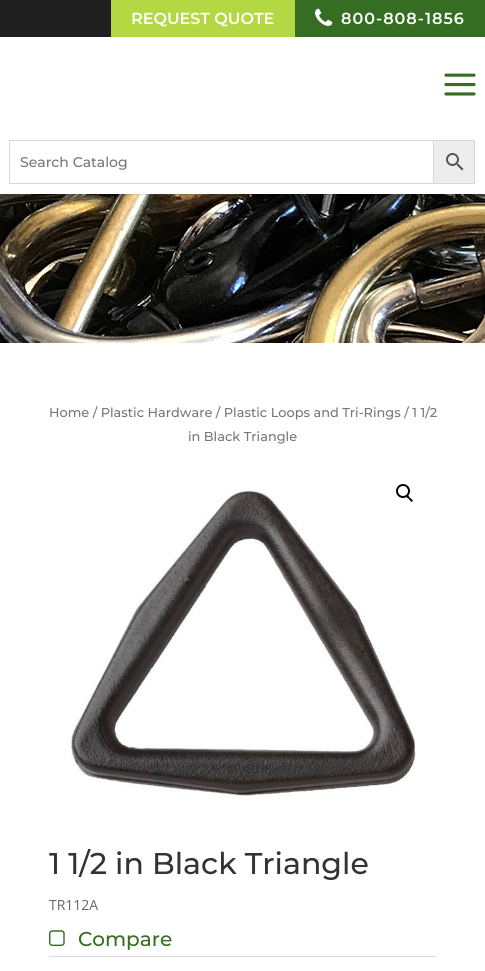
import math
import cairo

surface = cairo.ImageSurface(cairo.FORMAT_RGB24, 485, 971)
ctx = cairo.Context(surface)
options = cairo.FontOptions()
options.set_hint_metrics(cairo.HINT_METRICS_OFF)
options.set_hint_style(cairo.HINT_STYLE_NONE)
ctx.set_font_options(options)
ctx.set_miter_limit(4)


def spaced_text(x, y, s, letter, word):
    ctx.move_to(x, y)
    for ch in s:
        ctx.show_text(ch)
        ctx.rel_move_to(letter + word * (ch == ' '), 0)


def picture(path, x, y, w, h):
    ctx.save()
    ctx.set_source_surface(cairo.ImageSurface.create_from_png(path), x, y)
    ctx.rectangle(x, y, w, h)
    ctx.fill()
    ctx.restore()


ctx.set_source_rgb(1, 1, 1)
ctx.paint()
picture("img4.png", 0, 194, 485, 149)
ctx.set_source_rgba(0, 0, 0, 0.1)
ctx.rectangle(0, 194, 485, 1)
ctx.fill()
ctx.set_source_rgb(0.122, 0.122, 0.122)
ctx.rectangle(0, 0, 111, 37)
ctx.fill()
ctx.set_source_rgb(0.706, 0.847, 0.267)
ctx.rectangle(111, 0, 184, 37)
ctx.fill()
ctx.select_font_face("Montserrat SemiBold")
ctx.set_font_size(16)
ctx.set_source_rgb(1, 1, 1)
ctx.move_to(131, 24)
ctx.show_text("REQUEST QUOTE")
ctx.set_source_rgb(0.208, 0.427, 0.133)
ctx.rectangle(295, 0, 190, 37)
ctx.fill()
picture("img1.png", 315, 8, 18, 18)
ctx.set_source_rgb(1, 1, 1)
spaced_text(341, 24, "800-808-1856", 1, 0)
picture("img2.png", 444, 73, 32, 23)
ctx.set_source_rgb(0.929, 0.929, 0.929)
ctx.rectangle(433.5, 140.5, 41, 43)
ctx.fill_preserve()
ctx.set_source_rgb(0.847, 0.847, 0.847)
ctx.set_line_width(1)
ctx.stroke()
ctx.rectangle(9.5, 140.5, 424, 43)
ctx.stroke()
ctx.select_font_face("Montserrat Medium")
ctx.set_font_size(14)
ctx.set_source_rgb(0.463, 0.463, 0.463)
ctx.move_to(20, 167)
ctx.show_text("Search Catalog")
picture("img3.png", 446, 153, 18, 18)
ctx.set_font_size(12.9)
ctx.move_to(49, 417)
ctx.show_text("Home / Plastic Hardware / Plastic Loops and Tri-Rings / 1 1/2")
ctx.move_to(188, 441)
ctx.show_text("in Black Triangle")
ctx.set_font_size(30)
ctx.set_source_rgb(0.2, 0.2, 0.2)
ctx.move_to(49, 874)
ctx.show_text("1 1/2 in Black Triangle")
picture("img5.png", 70, 490, 346, 359)
ctx.arc(403, 491, 6, 0, 2 * math.pi)
ctx.set_source_rgb(0, 0, 0)
ctx.set_line_width(2)
ctx.stroke()
ctx.new_path()
ctx.move_to(406.5, 495.5)
ctx.curve_to(408, 494.5, 409.5, 497, 410, 498)
ctx.curve_to(411, 498.5, 413.5, 500, 412.5, 501.5)
ctx.curve_to(411, 502.5, 409.5, 500, 409, 499)
ctx.curve_to(408, 498.5, 405.5, 497, 406.5, 495.5)
ctx.close_path()
ctx.fill()
ctx.select_font_face("Open Sans")
ctx.set_font_size(14)
ctx.set_source_rgb(0.4, 0.4, 0.4)
ctx.move_to(49, 910)
ctx.show_text("TR112A")
picture("img6.png", 49, 930, 16, 16)
ctx.select_font_face("Montserrat Medium")
ctx.set_font_size(20)
ctx.set_source_rgb(0.208, 0.427, 0.133)
ctx.move_to(78, 946)
ctx.show_text("Compare")
ctx.set_source_rgb(0.855, 0.855, 0.855)
ctx.rectangle(49, 956, 388, 1)
ctx.fill()
surface.write_to_png("page.png")
